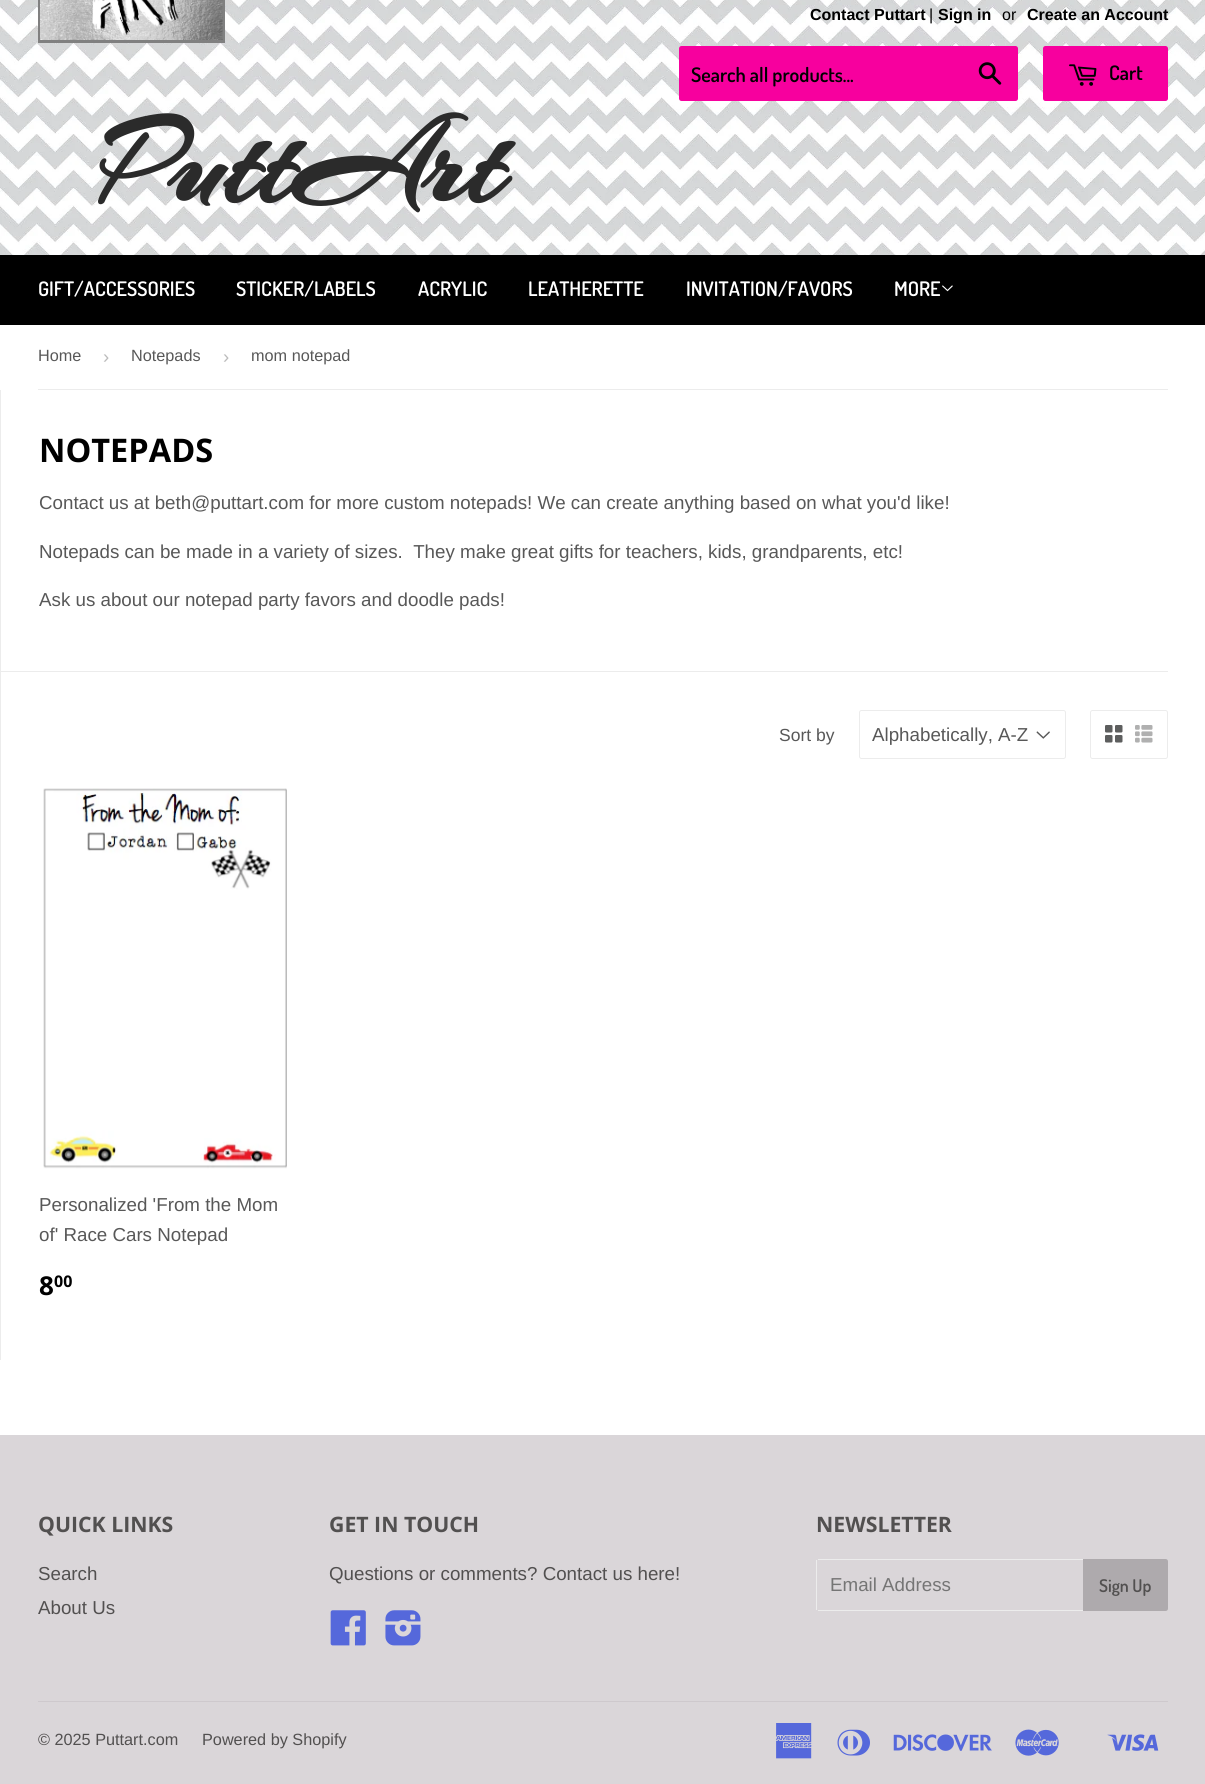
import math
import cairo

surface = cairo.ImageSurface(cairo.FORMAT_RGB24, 1205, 1784)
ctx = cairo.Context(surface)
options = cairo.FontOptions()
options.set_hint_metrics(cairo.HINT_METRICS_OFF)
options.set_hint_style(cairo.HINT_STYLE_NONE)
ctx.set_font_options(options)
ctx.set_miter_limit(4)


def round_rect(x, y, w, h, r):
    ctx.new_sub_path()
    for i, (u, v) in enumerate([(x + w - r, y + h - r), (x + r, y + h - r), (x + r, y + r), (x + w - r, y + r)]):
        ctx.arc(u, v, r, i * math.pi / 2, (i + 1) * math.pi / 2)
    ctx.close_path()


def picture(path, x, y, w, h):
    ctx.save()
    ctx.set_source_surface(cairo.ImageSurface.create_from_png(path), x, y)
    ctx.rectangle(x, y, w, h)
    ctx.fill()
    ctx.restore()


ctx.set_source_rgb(1, 1, 1)
ctx.paint()
picture("img1.png", 0, 0, 1205, 255)
ctx.select_font_face("Liberation Sans", cairo.FONT_SLANT_NORMAL, cairo.FONT_WEIGHT_BOLD)
ctx.set_font_size(16)
ctx.set_source_rgb(0, 0, 0)
ctx.move_to(810, 20)
ctx.show_text("Contact Puttart")
ctx.select_font_face("Liberation Sans")
ctx.move_to(929, 20)
ctx.show_text("|")
ctx.select_font_face("Liberation Sans", cairo.FONT_SLANT_NORMAL, cairo.FONT_WEIGHT_BOLD)
ctx.move_to(938, 20)
ctx.show_text("Sign in")
ctx.select_font_face("Liberation Sans")
ctx.move_to(1002, 20)
ctx.show_text("or")
ctx.select_font_face("Liberation Sans", cairo.FONT_SLANT_NORMAL, cairo.FONT_WEIGHT_BOLD)
ctx.move_to(1027, 20)
ctx.show_text("Create an Account")
ctx.set_source_rgb(0.965, 0, 0.62)
round_rect(679, 46, 339, 55, 2.5)
ctx.fill()
ctx.select_font_face("Dosis SemiBold")
ctx.set_font_size(20)
ctx.set_source_rgb(0, 0, 0)
ctx.move_to(691, 82)
ctx.show_text("Search all products...")
picture("img2.png", 978, 62, 24, 23)
ctx.set_source_rgb(0.965, 0, 0.62)
round_rect(1043, 46, 125, 55, 2.5)
ctx.fill()
picture("img3.png", 1069, 64, 28, 22)
ctx.set_source_rgb(0, 0, 0)
ctx.move_to(1109, 80)
ctx.show_text("Cart")
ctx.rectangle(39.5, -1.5, 184, 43)
ctx.set_source_rgb(0.502, 0.502, 0.502)
ctx.set_line_width(3)
ctx.stroke()
picture("img4.png", 40, 0, 183, 40)
ctx.select_font_face("Arizonia", cairo.FONT_SLANT_NORMAL, cairo.FONT_WEIGHT_BOLD)
ctx.set_font_size(125)
ctx.set_source_rgb(0.169, 0.169, 0.169)
ctx.move_to(100, 201)
ctx.show_text("PuttArt")
ctx.set_source_rgb(0, 0, 0)
ctx.rectangle(0, 255, 1205, 70)
ctx.fill()
ctx.select_font_face("Dosis SemiBold")
ctx.set_font_size(20)
ctx.set_source_rgb(1, 1, 1)
ctx.move_to(38, 296)
ctx.show_text("GIFT/ACCESSORIES")
ctx.move_to(236, 296)
ctx.show_text("STICKER/LABELS")
ctx.move_to(418, 296)
ctx.show_text("ACRYLIC")
ctx.move_to(528, 296)
ctx.show_text("LEATHERETTE")
ctx.move_to(686, 296)
ctx.show_text("INVITATION/FAVORS")
ctx.move_to(894, 296)
ctx.show_text("MORE")
picture("img5.png", 942, 285, 11, 7)
ctx.set_source_rgb(0.925, 0.925, 0.925)
ctx.rectangle(38, 389, 1130, 1)
ctx.fill()
ctx.select_font_face("Liberation Sans")
ctx.set_font_size(16.25)
ctx.set_source_rgb(0.345, 0.345, 0.345)
ctx.move_to(38, 361)
ctx.show_text("Home")
ctx.set_font_size(18.75)
ctx.set_source_rgb(0.733, 0.733, 0.733)
ctx.move_to(103, 363)
ctx.show_text("›")
ctx.set_font_size(16.25)
ctx.set_source_rgb(0.345, 0.345, 0.345)
ctx.move_to(131, 361)
ctx.show_text("Notepads")
ctx.set_font_size(18.75)
ctx.set_source_rgb(0.733, 0.733, 0.733)
ctx.move_to(223, 363)
ctx.show_text("›")
ctx.set_font_size(16.25)
ctx.set_source_rgb(0.345, 0.345, 0.345)
ctx.move_to(251, 361)
ctx.show_text("mom notepad")
ctx.set_source_rgb(0.925, 0.925, 0.925)
ctx.rectangle(0, 390, 1, 970)
ctx.fill()
ctx.select_font_face("Open Sans", cairo.FONT_SLANT_NORMAL, cairo.FONT_WEIGHT_BOLD)
ctx.set_font_size(32.5)
ctx.set_source_rgb(0, 0, 0)
ctx.move_to(39, 462)
ctx.show_text("NOTEPADS")
ctx.select_font_face("Liberation Sans")
ctx.set_font_size(18.75)
ctx.set_source_rgb(0.345, 0.345, 0.345)
ctx.move_to(39, 509)
ctx.show_text("Contact us at beth@puttart.com for more custom notepads! We can create anything based on what you'd like!")
ctx.move_to(39, 558)
ctx.show_text("Notepads can be made in a variety of sizes.  They make great gifts for teachers, kids, grandparents, etc!")
ctx.move_to(39, 606)
ctx.show_text("Ask us about our notepad party favors and doodle pads!")
ctx.set_source_rgb(0.925, 0.925, 0.925)
ctx.rectangle(1, 671, 1167, 1)
ctx.fill()
ctx.set_font_size(17.5)
ctx.set_source_rgb(0.345, 0.345, 0.345)
ctx.move_to(779, 741)
ctx.show_text("Sort by")
picture("img6.png", 1036, 731, 14, 8)
round_rect(859.5, 710.5, 206, 48, 2)
ctx.set_source_rgb(0.925, 0.925, 0.925)
ctx.set_line_width(1)
ctx.stroke()
ctx.set_font_size(18.75)
ctx.set_source_rgb(0.345, 0.345, 0.345)
ctx.move_to(872, 741)
ctx.show_text("Alphabetically, A-Z")
round_rect(1090.5, 710.5, 77, 48, 2)
ctx.set_source_rgb(0.925, 0.925, 0.925)
ctx.stroke()
picture("img7.png", 1105, 725, 18, 18)
picture("img8.png", 1135, 725, 18, 18)
picture("img9.png", 43, 788, 244, 381)
ctx.set_source_rgb(0.345, 0.345, 0.345)
ctx.move_to(39, 1211)
ctx.show_text("Personalized 'From the Mom")
ctx.move_to(39, 1241)
ctx.show_text("of' Race Cars Notepad")
ctx.select_font_face("Open Sans", cairo.FONT_SLANT_NORMAL, cairo.FONT_WEIGHT_BOLD)
ctx.set_font_size(26)
ctx.set_source_rgb(0, 0, 0)
ctx.move_to(39, 1295)
ctx.show_text("8")
ctx.set_font_size(16)
ctx.move_to(54, 1287)
ctx.show_text("00")
ctx.set_source_rgb(0.855, 0.839, 0.851)
ctx.rectangle(0, 1435, 1205, 349)
ctx.fill()
ctx.set_font_size(21.25)
ctx.set_source_rgb(0.322, 0.314, 0.314)
ctx.move_to(38, 1532)
ctx.show_text("QUICK LINKS")
ctx.select_font_face("Liberation Sans")
ctx.set_font_size(18.75)
ctx.move_to(38, 1580)
ctx.show_text("Search")
ctx.move_to(38, 1614)
ctx.show_text("About Us")
ctx.select_font_face("Open Sans", cairo.FONT_SLANT_NORMAL, cairo.FONT_WEIGHT_BOLD)
ctx.set_font_size(21.25)
ctx.move_to(329, 1532)
ctx.show_text("GET IN TOUCH")
ctx.select_font_face("Liberation Sans")
ctx.set_font_size(18.75)
ctx.move_to(329, 1580)
ctx.show_text("Questions or comments? Contact us here!")
picture("img10.png", 330, 1610, 36, 36)
picture("img11.png", 385, 1610, 36, 36)
ctx.select_font_face("Open Sans", cairo.FONT_SLANT_NORMAL, cairo.FONT_WEIGHT_BOLD)
ctx.set_font_size(21.25)
ctx.move_to(816, 1532)
ctx.show_text("NEWSLETTER")
ctx.set_source_rgb(0.925, 0.925, 0.925)
ctx.rectangle(818, 1559, 265, 1)
ctx.fill()
ctx.rectangle(818, 1610, 265, 1)
ctx.fill()
ctx.rectangle(816, 1560, 1, 50)
ctx.fill()
ctx.select_font_face("Liberation Sans")
ctx.set_font_size(18.75)
ctx.set_source_rgb(0.459, 0.459, 0.459)
ctx.move_to(830, 1591)
ctx.show_text("Email Address")
ctx.set_source_rgb(0.682, 0.667, 0.678)
ctx.new_path()
ctx.move_to(1083, 1559)
ctx.line_to(1165.5, 1559)
ctx.curve_to(1167, 1559, 1168, 1560, 1168, 1561.5)
ctx.line_to(1168, 1608.5)
ctx.curve_to(1168, 1610, 1167, 1611, 1165.5, 1611)
ctx.line_to(1083, 1611)
ctx.close_path()
ctx.fill()
ctx.select_font_face("Dosis SemiBold")
ctx.set_font_size(17.5)
ctx.set_source_rgb(0.322, 0.314, 0.314)
ctx.move_to(1099, 1592)
ctx.show_text("Sign Up")
ctx.set_source_rgb(0.808, 0.788, 0.804)
ctx.rectangle(38, 1701, 1130, 1)
ctx.fill()
ctx.select_font_face("Liberation Sans")
ctx.set_font_size(16.25)
ctx.set_source_rgb(0.322, 0.314, 0.314)
ctx.move_to(38, 1745)
ctx.show_text("© 2025 Puttart.com")
ctx.move_to(202, 1745)
ctx.show_text("Powered by Shopify")
picture("img12.png", 776, 1723, 36, 36)
picture("img13.png", 837, 1729, 33, 27)
picture("img14.png", 893, 1734, 99, 17)
picture("img15.png", 1015, 1729, 44, 27)
picture("img16.png", 1107, 1734, 52, 17)
surface.write_to_png("page.png")
